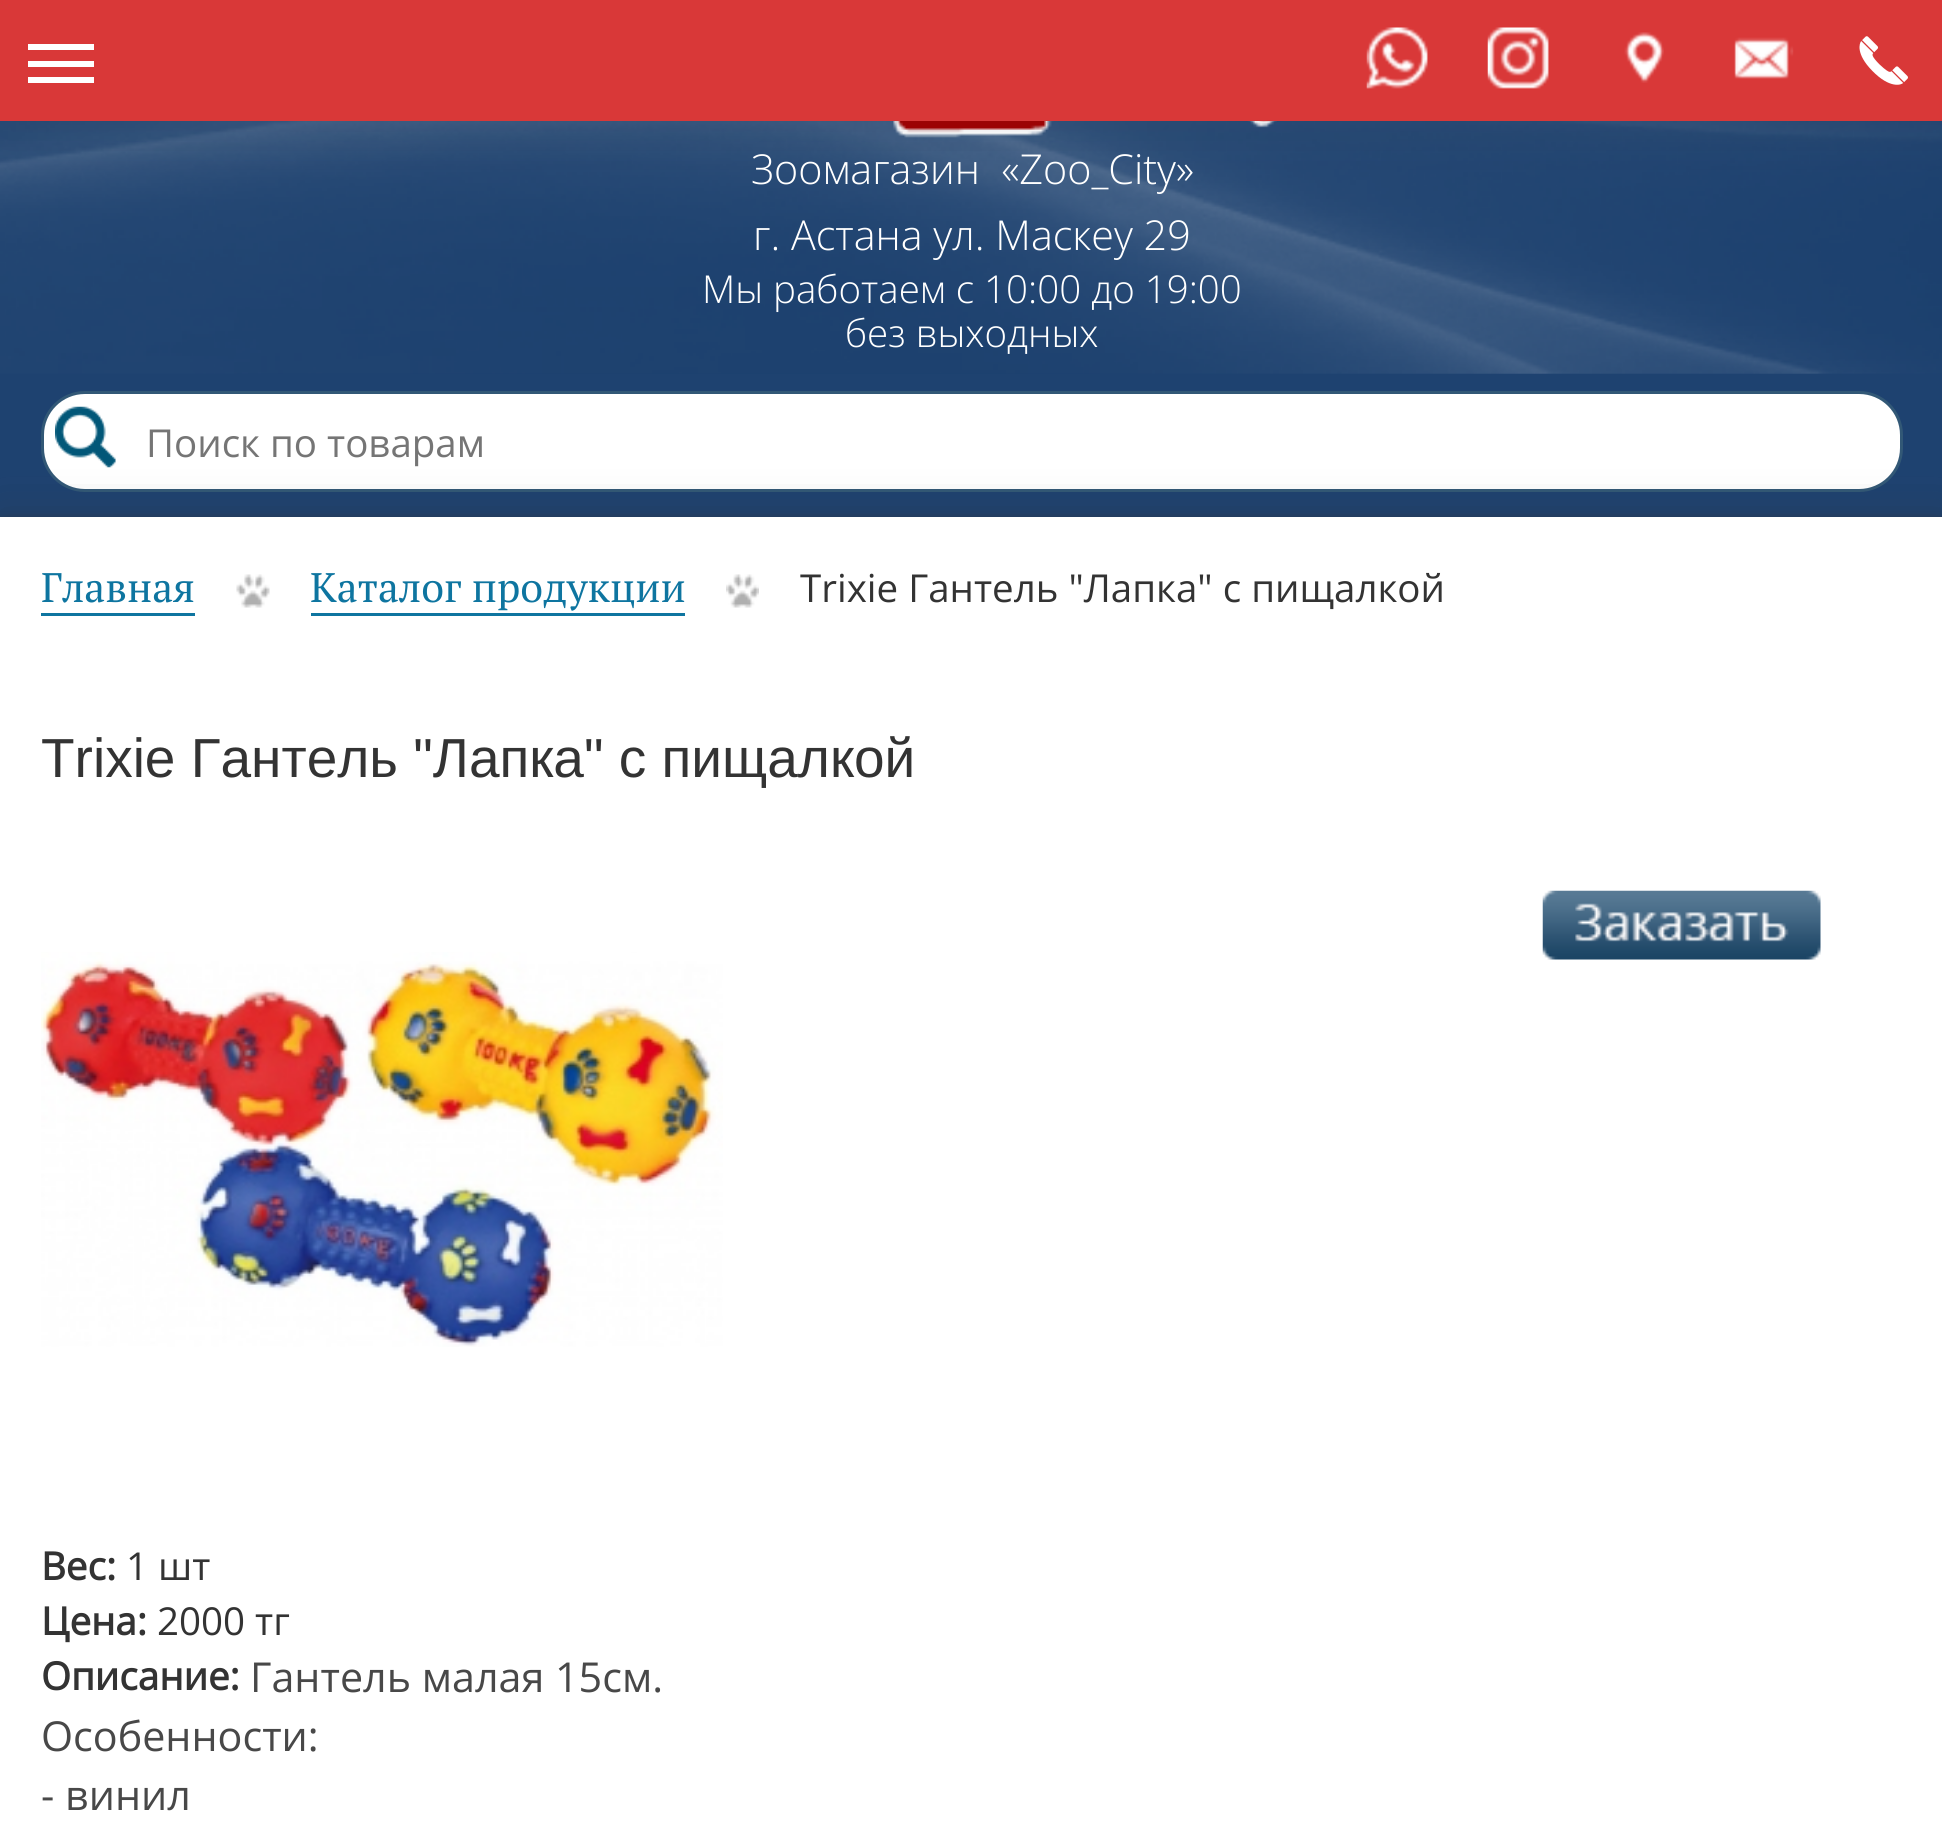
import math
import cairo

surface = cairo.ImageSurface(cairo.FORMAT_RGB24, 1942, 1848)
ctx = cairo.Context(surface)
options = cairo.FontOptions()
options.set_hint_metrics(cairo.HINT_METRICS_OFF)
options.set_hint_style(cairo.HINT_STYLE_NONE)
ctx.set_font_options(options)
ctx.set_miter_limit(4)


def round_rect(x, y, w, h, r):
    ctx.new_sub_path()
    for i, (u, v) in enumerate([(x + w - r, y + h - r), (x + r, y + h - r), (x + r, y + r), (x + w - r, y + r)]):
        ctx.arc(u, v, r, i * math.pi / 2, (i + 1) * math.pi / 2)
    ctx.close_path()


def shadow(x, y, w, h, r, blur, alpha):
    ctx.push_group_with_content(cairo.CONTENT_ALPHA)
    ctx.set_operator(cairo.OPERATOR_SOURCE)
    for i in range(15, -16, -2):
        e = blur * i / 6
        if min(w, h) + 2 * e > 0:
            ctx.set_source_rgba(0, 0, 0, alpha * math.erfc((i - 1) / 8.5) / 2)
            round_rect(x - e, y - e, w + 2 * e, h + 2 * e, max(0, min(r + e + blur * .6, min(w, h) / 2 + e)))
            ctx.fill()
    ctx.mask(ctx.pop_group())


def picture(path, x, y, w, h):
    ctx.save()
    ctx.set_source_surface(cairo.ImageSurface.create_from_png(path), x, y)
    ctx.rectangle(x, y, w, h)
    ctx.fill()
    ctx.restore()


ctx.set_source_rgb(0.118, 0.259, 0.439)
ctx.paint()
picture("img6.png", 0, 121, 1942, 253)
picture("img7.png", 893, 121, 384, 17)
ctx.set_source_rgb(0.141, 0.153, 0.2)
shadow(0, 6, 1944, 121, 0, 29, 0.11)
ctx.set_source_rgb(0.851, 0.22, 0.22)
ctx.rectangle(0, 0, 1942, 121)
ctx.fill()
ctx.set_source_rgb(1, 1, 1)
ctx.rectangle(28, 61, 66, 6)
ctx.fill()
ctx.rectangle(28, 44, 66, 6)
ctx.fill()
ctx.rectangle(28, 77, 66, 6)
ctx.fill()
picture("img1.png", 1366, 27, 62, 62)
picture("img2.png", 1487, 27, 62, 62)
picture("img3.png", 1624, 32, 40, 51)
picture("img4.png", 1734, 37, 60, 42)
picture("img5.png", 1859, 36, 49, 49)
ctx.select_font_face("Open Sans Light")
ctx.set_font_size(41.25)
ctx.move_to(751, 184)
ctx.show_text("Зоомагазин  «Zoo_City»")
ctx.move_to(753, 250)
ctx.show_text("г. Астана ул. Маскеу 29")
ctx.set_font_size(38.5)
ctx.move_to(702, 303)
ctx.show_text("Мы работаем с 10:00 до 19:00")
ctx.move_to(845, 347)
ctx.show_text("без выходных")
round_rect(42.5, 392.5, 1859, 98, 42.5)
ctx.fill_preserve()
ctx.set_source_rgb(0.196, 0.345, 0.463)
ctx.set_line_width(3)
ctx.stroke()
ctx.set_source_rgb(0.196, 0.196, 0.196)
shadow(0, 517, 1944, 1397, 0, 22, 0.3)
picture("img8.png", 55, 406, 61, 62)
ctx.select_font_face("Open Sans")
ctx.set_source_rgb(0.459, 0.459, 0.459)
ctx.move_to(146, 457)
ctx.show_text("Поиск по товарам")
ctx.set_source_rgb(0.196, 0.196, 0.196)
shadow(0, 517, 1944, 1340, 0, 3, 0.3)
ctx.set_source_rgb(1, 1, 1)
ctx.rectangle(0, 517, 1942, 1331)
ctx.fill()
ctx.select_font_face("PT Serif")
ctx.set_font_size(41.25)
ctx.set_source_rgb(0.055, 0.459, 0.627)
ctx.move_to(41, 602)
ctx.show_text("Главная")
ctx.rectangle(41, 613, 154, 3)
ctx.fill()
picture("img9.png", 236, 574, 34, 34)
ctx.move_to(310, 602)
ctx.show_text("Каталог продукции")
ctx.rectangle(311, 613, 374, 3)
ctx.fill()
picture("img10.png", 726, 574, 33, 34)
ctx.select_font_face("Open Sans")
ctx.set_font_size(38.5)
ctx.set_source_rgb(0.2, 0.2, 0.2)
ctx.move_to(800, 602)
ctx.show_text("Trixie Гантель \"Лапка\" с пищалкой")
ctx.select_font_face("Liberation Sans")
ctx.set_font_size(55)
ctx.move_to(41, 777)
ctx.show_text("Trixie Гантель \"Лапка\" с пищалкой")
picture("img11.png", 1542, 890, 279, 70)
picture("img12.png", 41, 952, 682, 395)
ctx.select_font_face("Open Sans", cairo.FONT_SLANT_NORMAL, cairo.FONT_WEIGHT_BOLD)
ctx.set_font_size(38.5)
ctx.move_to(41, 1580)
ctx.show_text("Вес:")
ctx.select_font_face("Open Sans")
ctx.move_to(126, 1580)
ctx.show_text("1 шт")
ctx.select_font_face("Open Sans", cairo.FONT_SLANT_NORMAL, cairo.FONT_WEIGHT_BOLD)
ctx.move_to(41, 1635)
ctx.show_text("Цена:")
ctx.select_font_face("Open Sans")
ctx.move_to(157, 1635)
ctx.show_text("2000 тг")
ctx.set_font_size(41.25)
ctx.set_source_rgb(0.282, 0.282, 0.282)
ctx.move_to(250, 1692)
ctx.show_text("Гантель малая 15см.")
ctx.move_to(41, 1751)
ctx.show_text("Особенности:")
ctx.move_to(41, 1810)
ctx.show_text("- винил")
ctx.select_font_face("Open Sans", cairo.FONT_SLANT_NORMAL, cairo.FONT_WEIGHT_BOLD)
ctx.set_font_size(38.5)
ctx.set_source_rgb(0.2, 0.2, 0.2)
ctx.move_to(41, 1690)
ctx.show_text("Описание:")
surface.write_to_png("page.png")
